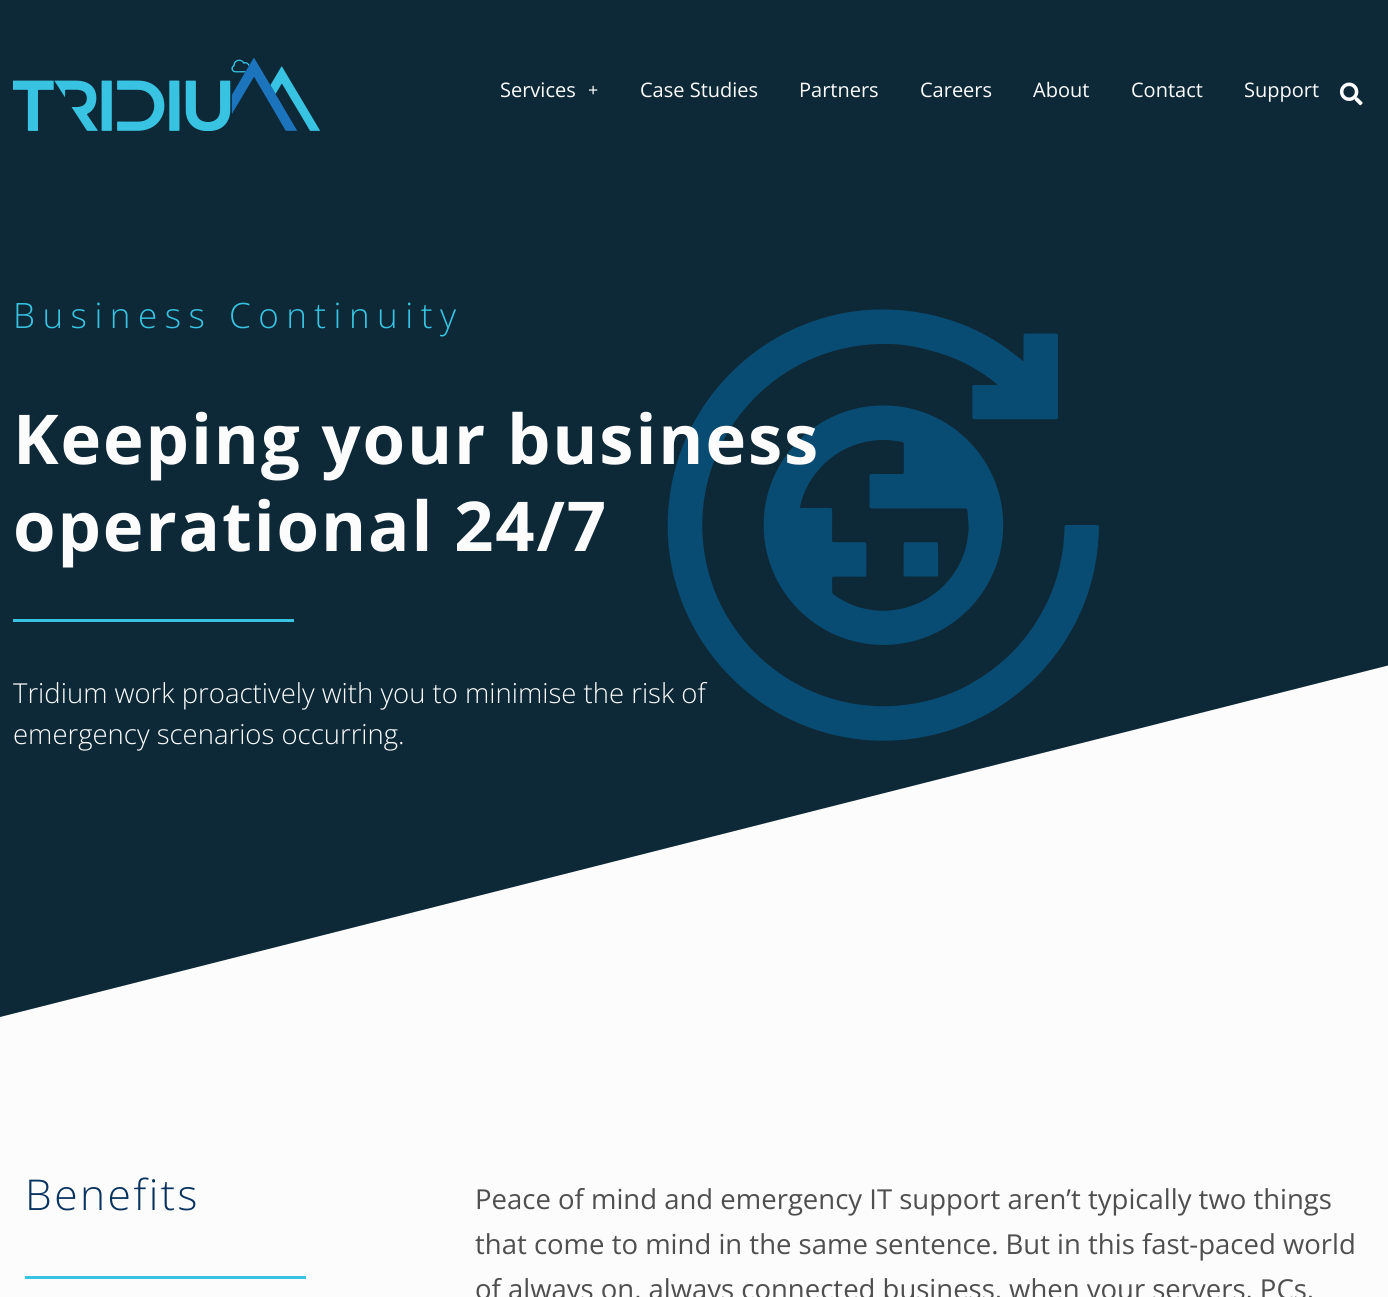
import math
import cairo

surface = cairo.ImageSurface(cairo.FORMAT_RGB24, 1388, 1297)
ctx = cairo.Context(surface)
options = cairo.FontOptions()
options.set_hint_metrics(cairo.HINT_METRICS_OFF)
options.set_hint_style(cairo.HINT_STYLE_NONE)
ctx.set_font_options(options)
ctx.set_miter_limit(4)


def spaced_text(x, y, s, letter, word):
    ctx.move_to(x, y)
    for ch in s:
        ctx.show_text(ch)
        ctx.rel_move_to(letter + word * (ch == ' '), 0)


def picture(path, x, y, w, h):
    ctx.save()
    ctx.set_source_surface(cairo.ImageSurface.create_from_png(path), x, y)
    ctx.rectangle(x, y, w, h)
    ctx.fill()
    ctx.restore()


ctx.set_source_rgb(0.988, 0.988, 0.992)
ctx.paint()
ctx.set_source_rgb(0.051, 0.157, 0.216)
ctx.rectangle(0, 0, 1388, 1017)
ctx.fill()
picture("img1.png", 13, 58, 307, 73)
ctx.select_font_face("Open Sans")
ctx.set_font_size(20)
ctx.set_source_rgb(0.988, 0.988, 0.992)
ctx.move_to(500, 97)
ctx.show_text("Services")
ctx.select_font_face("Liberation Serif", cairo.FONT_SLANT_NORMAL, cairo.FONT_WEIGHT_BOLD)
ctx.set_font_size(18)
ctx.move_to(588, 96)
ctx.show_text("+")
ctx.select_font_face("Open Sans")
ctx.set_font_size(20)
ctx.move_to(640, 97)
ctx.show_text("Case Studies")
ctx.move_to(799, 97)
ctx.show_text("Partners")
ctx.move_to(920, 97)
ctx.show_text("Careers")
ctx.move_to(1033, 97)
ctx.show_text("About")
ctx.move_to(1131, 97)
ctx.show_text("Contact")
ctx.move_to(1244, 97)
ctx.show_text("Support")
picture("img2.png", 1339, 82, 24, 24)
ctx.select_font_face("Open Sans Light")
ctx.set_font_size(35)
ctx.set_source_rgb(0.216, 0.765, 0.882)
spaced_text(13, 328, "Business Continuity", 7.5, 0)
ctx.save()
ctx.rectangle(0, 664, 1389, 375)
ctx.clip()
ctx.set_source_rgb(0.988, 0.988, 0.992)
ctx.new_path()
ctx.move_to(0, 1017)
ctx.line_to(0, 1040)
ctx.line_to(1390, 1040)
ctx.line_to(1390, 665)
ctx.close_path()
ctx.fill()
ctx.restore()
picture("img3.png", 667, 309, 432, 432)
ctx.select_font_face("Open Sans", cairo.FONT_SLANT_NORMAL, cairo.FONT_WEIGHT_BOLD)
ctx.set_font_size(68.75)
ctx.set_source_rgb(0.988, 0.988, 0.992)
spaced_text(13, 464, "Keeping your business", 1.9, 0)
spaced_text(13, 551, "operational 24/7", 1.9, 0)
ctx.set_source_rgb(0.216, 0.765, 0.882)
ctx.rectangle(13, 619, 281, 3)
ctx.fill()
ctx.select_font_face("Open Sans Light")
ctx.set_font_size(27.5)
ctx.set_source_rgb(0.988, 0.988, 0.992)
ctx.move_to(13, 703)
ctx.show_text("Tridium work proactively with you to minimise the risk of")
ctx.move_to(13, 744)
ctx.show_text("emergency scenarios occurring.")
ctx.set_font_size(42.5)
ctx.set_source_rgb(0.039, 0.2, 0.373)
spaced_text(25, 1210, "Benefits", 2.5, 0)
ctx.set_source_rgb(0.216, 0.765, 0.882)
ctx.rectangle(25, 1276, 281, 3)
ctx.fill()
ctx.select_font_face("Open Sans")
ctx.set_font_size(27.5)
ctx.set_source_rgb(0.31, 0.31, 0.31)
ctx.move_to(475, 1209)
ctx.show_text("Peace of mind and emergency IT support aren’t typically two things")
ctx.move_to(475, 1254)
ctx.show_text("that come to mind in the same sentence. But in this fast-paced world")
ctx.move_to(475, 1299)
ctx.show_text("of always on, always connected business, when your servers, PCs,")
surface.write_to_png("page.png")
